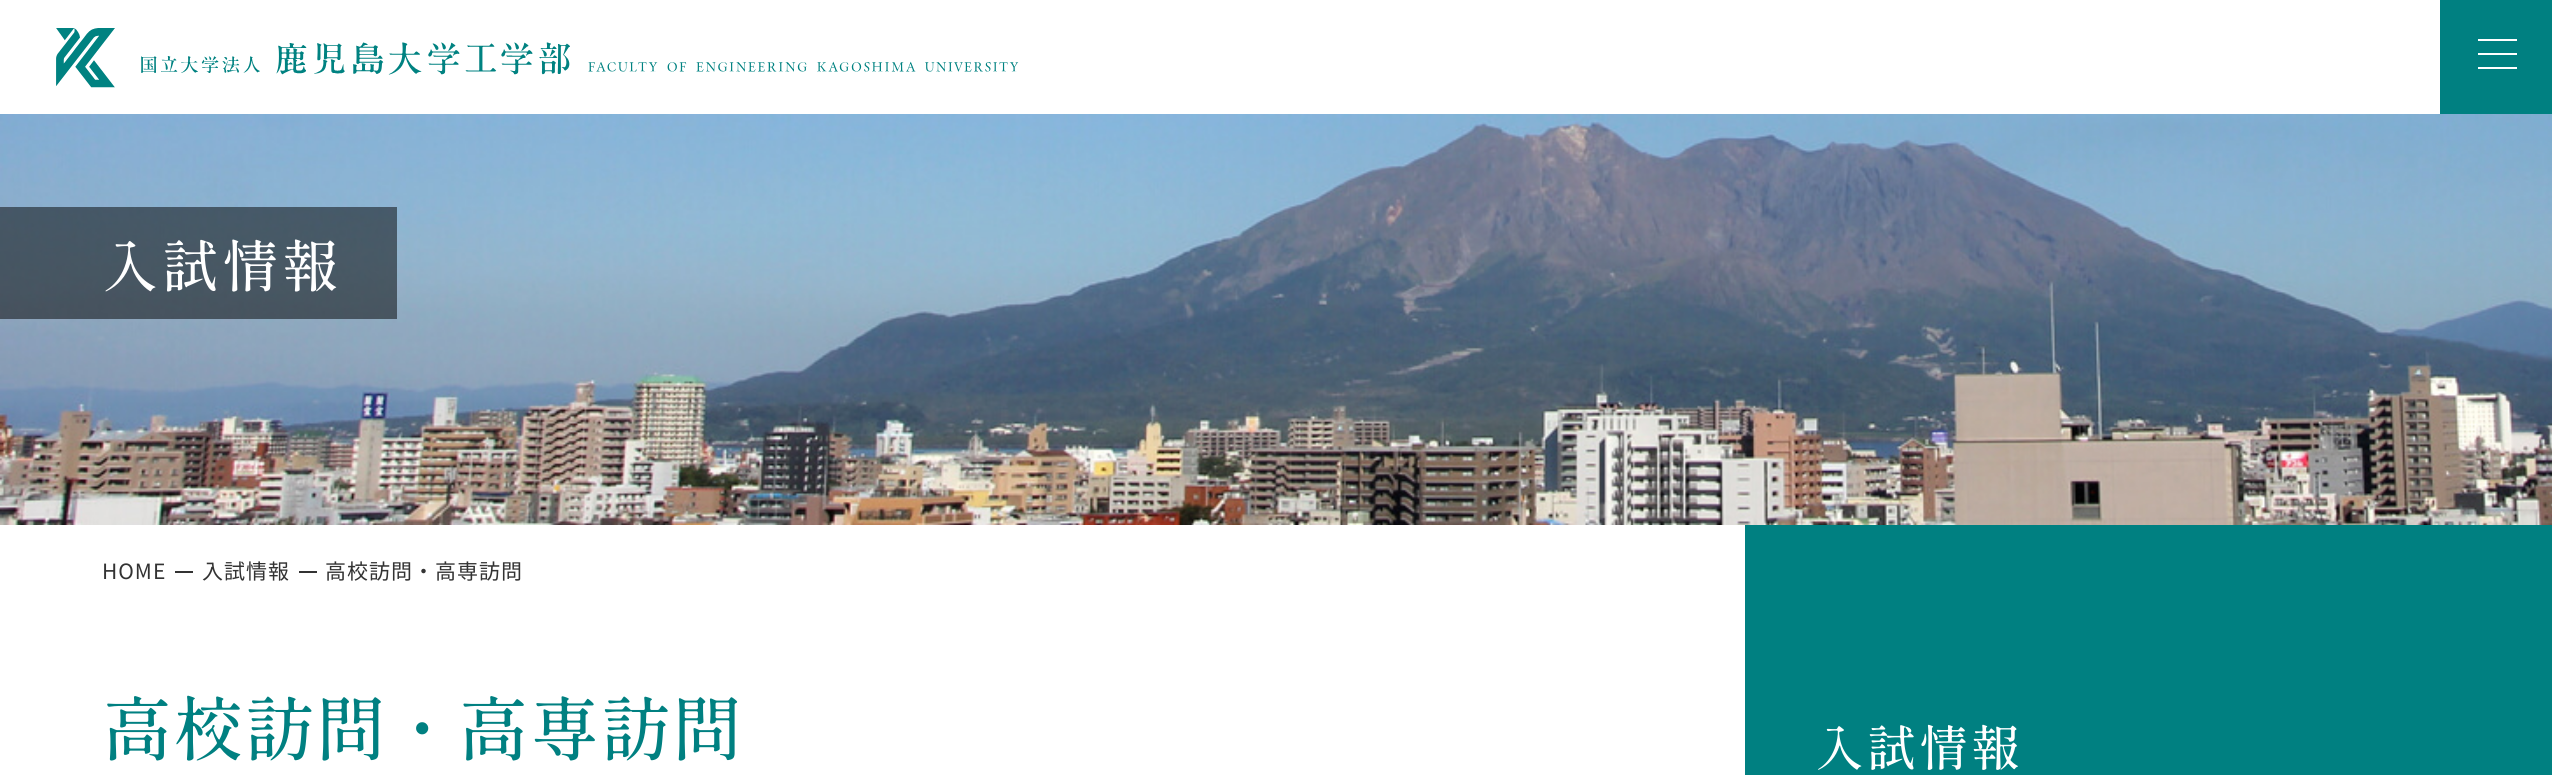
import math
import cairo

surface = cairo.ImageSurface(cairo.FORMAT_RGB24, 2552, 775)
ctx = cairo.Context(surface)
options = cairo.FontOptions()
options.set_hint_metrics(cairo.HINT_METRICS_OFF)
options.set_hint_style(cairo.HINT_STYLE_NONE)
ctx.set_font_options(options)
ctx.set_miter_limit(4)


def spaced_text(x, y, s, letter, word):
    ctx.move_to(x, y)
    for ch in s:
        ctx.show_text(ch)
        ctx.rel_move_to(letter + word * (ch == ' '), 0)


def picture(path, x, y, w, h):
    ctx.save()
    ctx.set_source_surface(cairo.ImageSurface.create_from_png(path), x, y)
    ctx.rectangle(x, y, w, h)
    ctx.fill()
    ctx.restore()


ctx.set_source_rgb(1, 1, 1)
ctx.paint()
picture("img1.png", 56, 28, 963, 60)
ctx.set_source_rgb(0, 0.502, 0.506)
ctx.rectangle(2440, 0, 112, 114)
ctx.fill()
ctx.set_source_rgb(1, 1, 1)
ctx.rectangle(2478, 39, 39, 2)
ctx.fill()
ctx.rectangle(2478, 53, 39, 2)
ctx.fill()
ctx.rectangle(2478, 67, 39, 2)
ctx.fill()
picture("img2.png", 0, 114, 2552, 411)
ctx.set_source_rgba(0, 0, 0, 0.5)
ctx.rectangle(0, 207, 397, 112)
ctx.fill()
ctx.select_font_face("Shippori Mincho B1 Medium")
ctx.set_font_size(56.5)
ctx.set_source_rgb(1, 1, 1)
spaced_text(102, 287, "入試情報", 3.5, 0)
ctx.select_font_face("Noto Sans JP")
ctx.set_font_size(21)
ctx.set_source_rgb(0.2, 0.2, 0.2)
spaced_text(102, 579, "HOME", 1, 0)
ctx.rectangle(175, 571, 18, 2)
ctx.fill()
spaced_text(202, 579, "入試情報", 1, 0)
ctx.rectangle(299, 571, 18, 2)
ctx.fill()
spaced_text(325, 579, "高校訪問・高専訪問", 1, 0)
ctx.select_font_face("Shippori Mincho B1 Medium")
ctx.set_font_size(70.25)
ctx.set_source_rgb(0, 0.502, 0.506)
spaced_text(102, 755, "高校訪問・高専訪問", 1, 0)
ctx.rectangle(1745, 525, 807, 250)
ctx.fill()
ctx.set_font_size(49)
ctx.set_source_rgb(1, 1, 1)
spaced_text(1815, 766, "入試情報", 3, 0)
surface.write_to_png("page.png")
